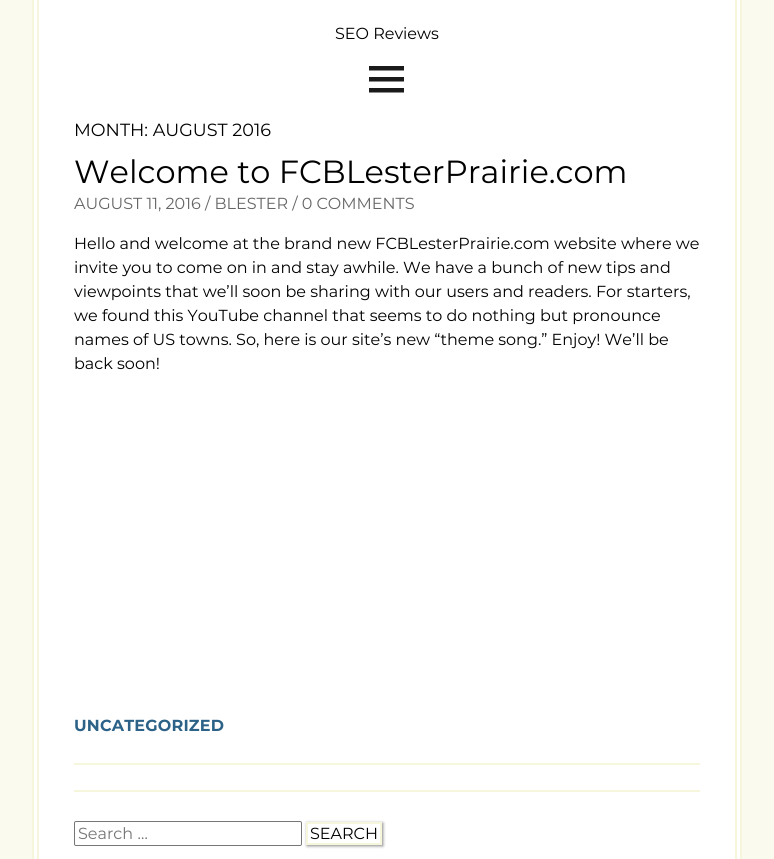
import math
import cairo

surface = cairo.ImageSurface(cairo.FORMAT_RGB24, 774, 859)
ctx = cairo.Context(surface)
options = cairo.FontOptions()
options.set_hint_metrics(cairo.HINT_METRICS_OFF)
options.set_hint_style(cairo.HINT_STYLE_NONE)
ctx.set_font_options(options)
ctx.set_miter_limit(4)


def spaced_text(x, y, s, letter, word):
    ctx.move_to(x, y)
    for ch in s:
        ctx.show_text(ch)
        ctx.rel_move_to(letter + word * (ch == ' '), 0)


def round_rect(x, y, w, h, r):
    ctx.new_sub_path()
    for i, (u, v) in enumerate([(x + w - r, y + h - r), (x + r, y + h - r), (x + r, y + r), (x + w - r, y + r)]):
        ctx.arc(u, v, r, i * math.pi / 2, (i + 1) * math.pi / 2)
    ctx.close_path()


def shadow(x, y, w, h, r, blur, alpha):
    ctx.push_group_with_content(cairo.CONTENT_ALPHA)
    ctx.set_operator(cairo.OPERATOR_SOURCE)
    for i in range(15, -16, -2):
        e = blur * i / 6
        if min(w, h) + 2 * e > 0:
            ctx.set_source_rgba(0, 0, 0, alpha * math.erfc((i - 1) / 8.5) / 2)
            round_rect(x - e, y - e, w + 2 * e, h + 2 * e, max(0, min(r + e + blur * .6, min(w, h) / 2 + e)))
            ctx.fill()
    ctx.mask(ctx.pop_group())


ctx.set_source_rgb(0.98, 0.98, 0.933)
ctx.paint()
ctx.set_source_rgb(1, 1, 1)
ctx.rectangle(33, -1, 708, 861)
ctx.fill_preserve()
ctx.set_source_rgb(0.961, 0.961, 0.863)
ctx.stroke()
ctx.rectangle(38, -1, 698, 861)
ctx.stroke()
ctx.select_font_face("Montserrat")
ctx.set_font_size(16)
ctx.set_source_rgb(0, 0, 0)
ctx.move_to(335, 39)
ctx.show_text("SEO Reviews")
ctx.set_source_rgb(0.102, 0.102, 0.102)
ctx.new_path()
ctx.move_to(369, 92.5)
ctx.line_to(369, 88)
ctx.line_to(404, 88)
ctx.line_to(404, 92.5)
ctx.close_path()
ctx.move_to(369, 66)
ctx.line_to(404, 66)
ctx.line_to(404, 70.5)
ctx.line_to(369, 70.5)
ctx.close_path()
ctx.move_to(369, 81.5)
ctx.line_to(369, 77)
ctx.line_to(404, 77)
ctx.line_to(404, 81.5)
ctx.close_path()
ctx.fill()
ctx.set_font_size(17.6)
ctx.set_source_rgb(0, 0, 0)
ctx.move_to(74, 136)
ctx.show_text("MONTH: AUGUST 2016")
ctx.set_source_rgb(0.961, 0.961, 0.863)
ctx.rectangle(74, 763, 626, 2)
ctx.fill()
ctx.set_font_size(32)
ctx.set_source_rgb(0, 0, 0)
ctx.move_to(74, 183)
ctx.show_text("Welcome to FCBLesterPrairie.com")
ctx.set_font_size(16)
ctx.set_source_rgb(0.4, 0.4, 0.4)
ctx.move_to(74, 209)
ctx.show_text("AUGUST 11, 2016 / BLESTER / 0 COMMENTS")
ctx.set_source_rgb(0, 0, 0)
ctx.move_to(74, 249)
ctx.show_text("Hello and welcome at the brand new FCBLesterPrairie.com website where we")
ctx.move_to(74, 273)
ctx.show_text("invite you to come on in and stay awhile. We have a bunch of new tips and")
ctx.move_to(74, 297)
ctx.show_text("viewpoints that we’ll soon be sharing with our users and readers. For starters,")
ctx.move_to(74, 321)
ctx.show_text("we found this YouTube channel that seems to do nothing but pronounce")
ctx.move_to(74, 345)
ctx.show_text("names of US towns. So, here is our site’s new “theme song.” Enjoy! We’ll be")
ctx.move_to(74, 369)
ctx.show_text("back soon!")
ctx.select_font_face("Montserrat", cairo.FONT_SLANT_NORMAL, cairo.FONT_WEIGHT_BOLD)
ctx.set_source_rgb(0.173, 0.384, 0.529)
spaced_text(74, 731, "UNCATEGORIZED", 0.2, 0)
ctx.set_source_rgb(0.961, 0.961, 0.863)
ctx.rectangle(74, 790, 626, 2)
ctx.fill()
round_rect(74.5, 821.5, 227, 24, 1.5)
ctx.set_source_rgb(0.463, 0.463, 0.463)
ctx.set_line_width(1)
ctx.stroke()
ctx.select_font_face("Montserrat")
ctx.set_source_rgb(0.459, 0.459, 0.459)
ctx.move_to(78, 839)
ctx.show_text("Search …")
ctx.save()
ctx.set_fill_rule(cairo.FILL_RULE_EVEN_ODD)
ctx.new_path()
ctx.move_to(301, 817)
ctx.line_to(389, 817)
ctx.line_to(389, 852)
ctx.line_to(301, 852)
ctx.close_path()
ctx.move_to(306, 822)
ctx.line_to(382, 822)
ctx.line_to(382, 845)
ctx.line_to(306, 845)
ctx.close_path()
ctx.clip()
ctx.set_source_rgb(0.533, 0.533, 0.533)
shadow(307, 823, 76, 23, 0, 1.5, 1)
ctx.restore()
ctx.rectangle(307, 823, 74, 21)
ctx.set_source_rgb(0.961, 0.961, 0.863)
ctx.set_line_width(2)
ctx.stroke()
ctx.set_source_rgb(0, 0, 0)
ctx.move_to(310, 839)
ctx.show_text("SEARCH")
surface.write_to_png("page.png")
